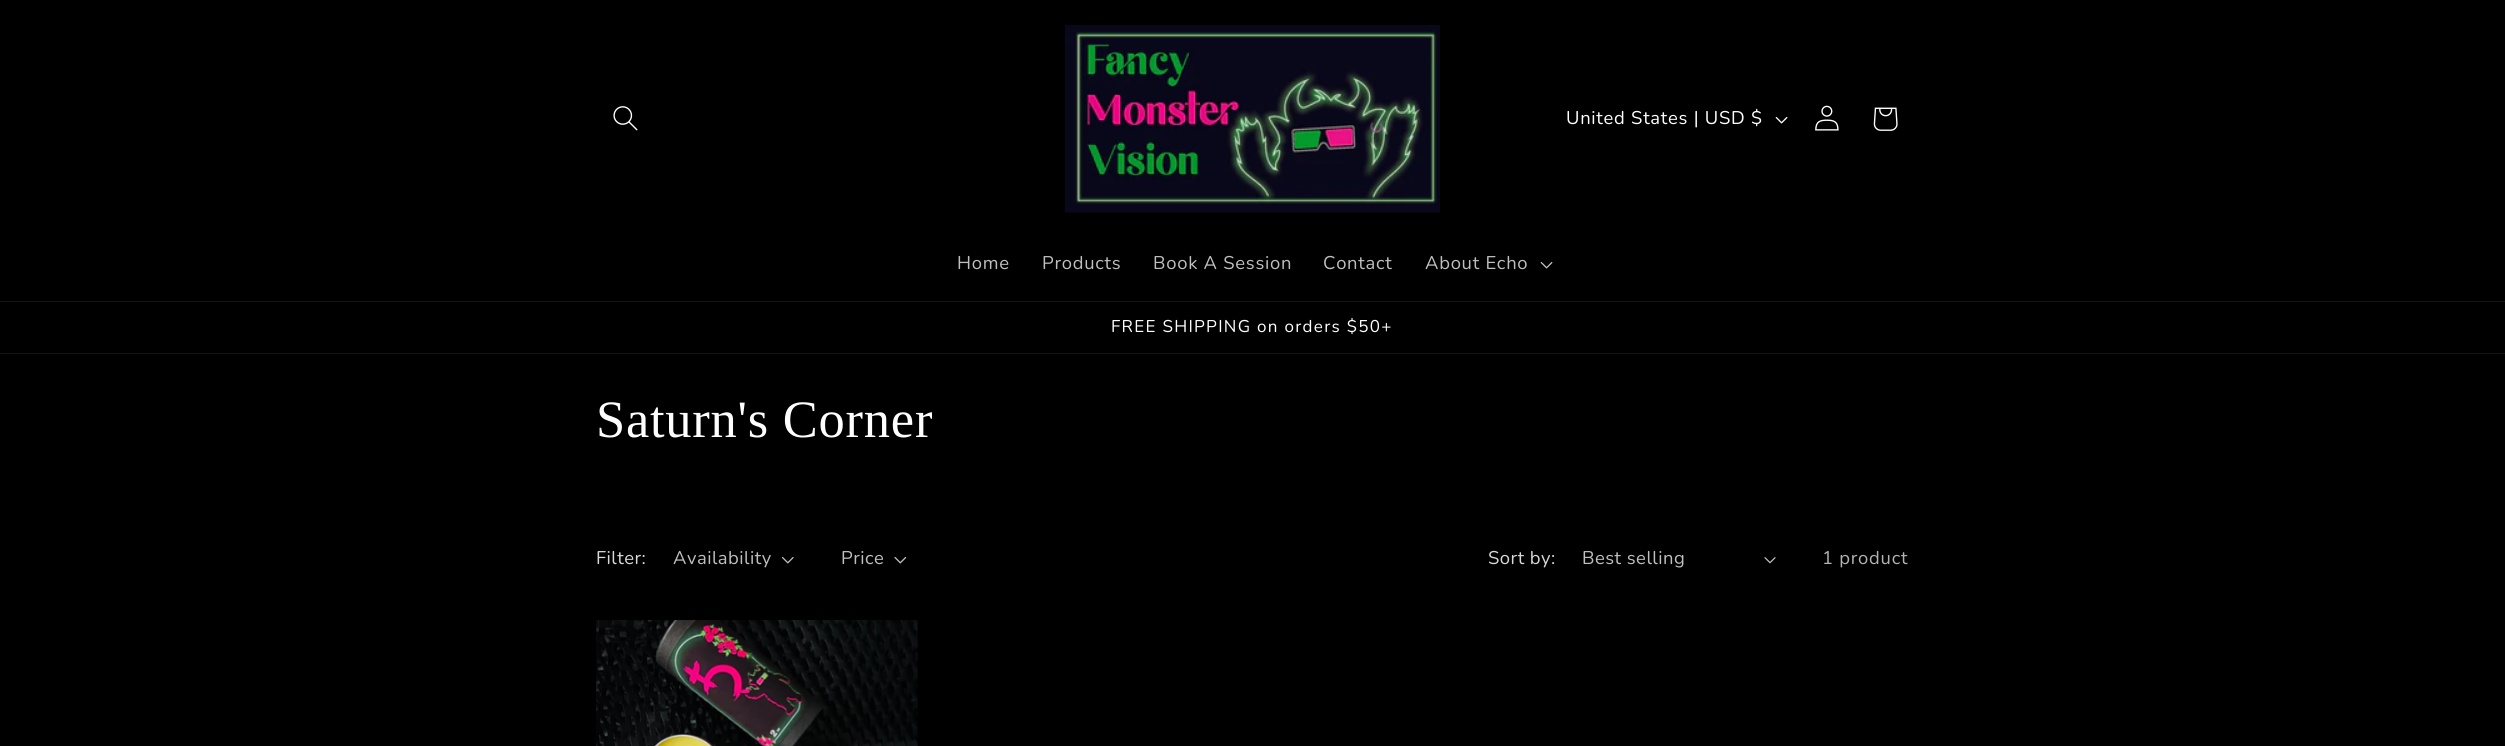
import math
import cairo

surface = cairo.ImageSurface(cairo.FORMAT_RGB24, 2505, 746)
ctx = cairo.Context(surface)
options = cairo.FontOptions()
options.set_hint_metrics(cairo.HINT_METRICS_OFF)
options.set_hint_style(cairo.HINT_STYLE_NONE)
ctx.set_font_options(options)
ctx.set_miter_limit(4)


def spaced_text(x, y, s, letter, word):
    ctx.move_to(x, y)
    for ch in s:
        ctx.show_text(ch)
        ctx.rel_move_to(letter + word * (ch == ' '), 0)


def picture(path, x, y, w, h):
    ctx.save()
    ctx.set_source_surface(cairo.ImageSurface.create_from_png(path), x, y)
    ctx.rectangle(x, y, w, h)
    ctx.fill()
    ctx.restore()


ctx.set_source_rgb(0, 0, 0)
ctx.paint()
ctx.set_source_rgb(0.078, 0.078, 0.078)
ctx.rectangle(0, 301, 2505, 1)
ctx.fill()
picture("img1.png", 613, 106, 25, 25)
picture("img2.png", 1065, 25, 375, 188)
ctx.select_font_face("Nunito")
ctx.set_font_size(18.4)
ctx.set_source_rgb(1, 1, 1)
spaced_text(1566, 124, "United States | USD $", 0.75, 0)
picture("img3.png", 1775, 117, 13, 7)
picture("img4.png", 1815, 105, 24, 26)
picture("img5.png", 1873, 107, 25, 24)
ctx.set_source_rgb(0.749, 0.749, 0.749)
spaced_text(957, 269, "Home", 0.75, 0)
spaced_text(1042, 269, "Products", 0.75, 0)
spaced_text(1153, 269, "Book A Session", 0.75, 0)
spaced_text(1323, 269, "Contact", 0.75, 0)
spaced_text(1425, 269, "About Echo", 0.75, 0)
picture("img6.png", 1540, 262, 13, 7)
ctx.set_source_rgb(0.078, 0.078, 0.078)
ctx.rectangle(0, 353, 2505, 1)
ctx.fill()
ctx.set_font_size(17)
ctx.set_source_rgb(1, 1, 1)
spaced_text(1111, 332, "FREE SHIPPING on orders $50+", 1.3, 0)
ctx.select_font_face("Liberation Serif")
ctx.set_font_size(52.5)
spaced_text(596, 437, "Saturn's Corner", 0.75, 0)
ctx.select_font_face("Nunito")
ctx.set_font_size(18.4)
ctx.set_source_rgb(0.851, 0.851, 0.851)
spaced_text(596, 564, "Filter:", 0.5, 0)
ctx.set_source_rgb(0.749, 0.749, 0.749)
spaced_text(673, 564, "Availability", 0.5, 0)
picture("img7.png", 782, 557, 12, 7)
spaced_text(841, 564, "Price", 0.5, 0)
picture("img8.png", 894, 557, 13, 7)
ctx.set_source_rgb(0.851, 0.851, 0.851)
spaced_text(1488, 564, "Sort by:", 0.5, 0)
ctx.set_source_rgb(0.749, 0.749, 0.749)
spaced_text(1582, 564, "Best selling", 0.5, 0)
picture("img9.png", 1764, 557, 12, 7)
ctx.set_source_rgb(0.702, 0.702, 0.702)
spaced_text(1822, 564, "1 product", 0.75, 0)
picture("img10.png", 596, 620, 322, 126)
surface.write_to_png("page.png")
